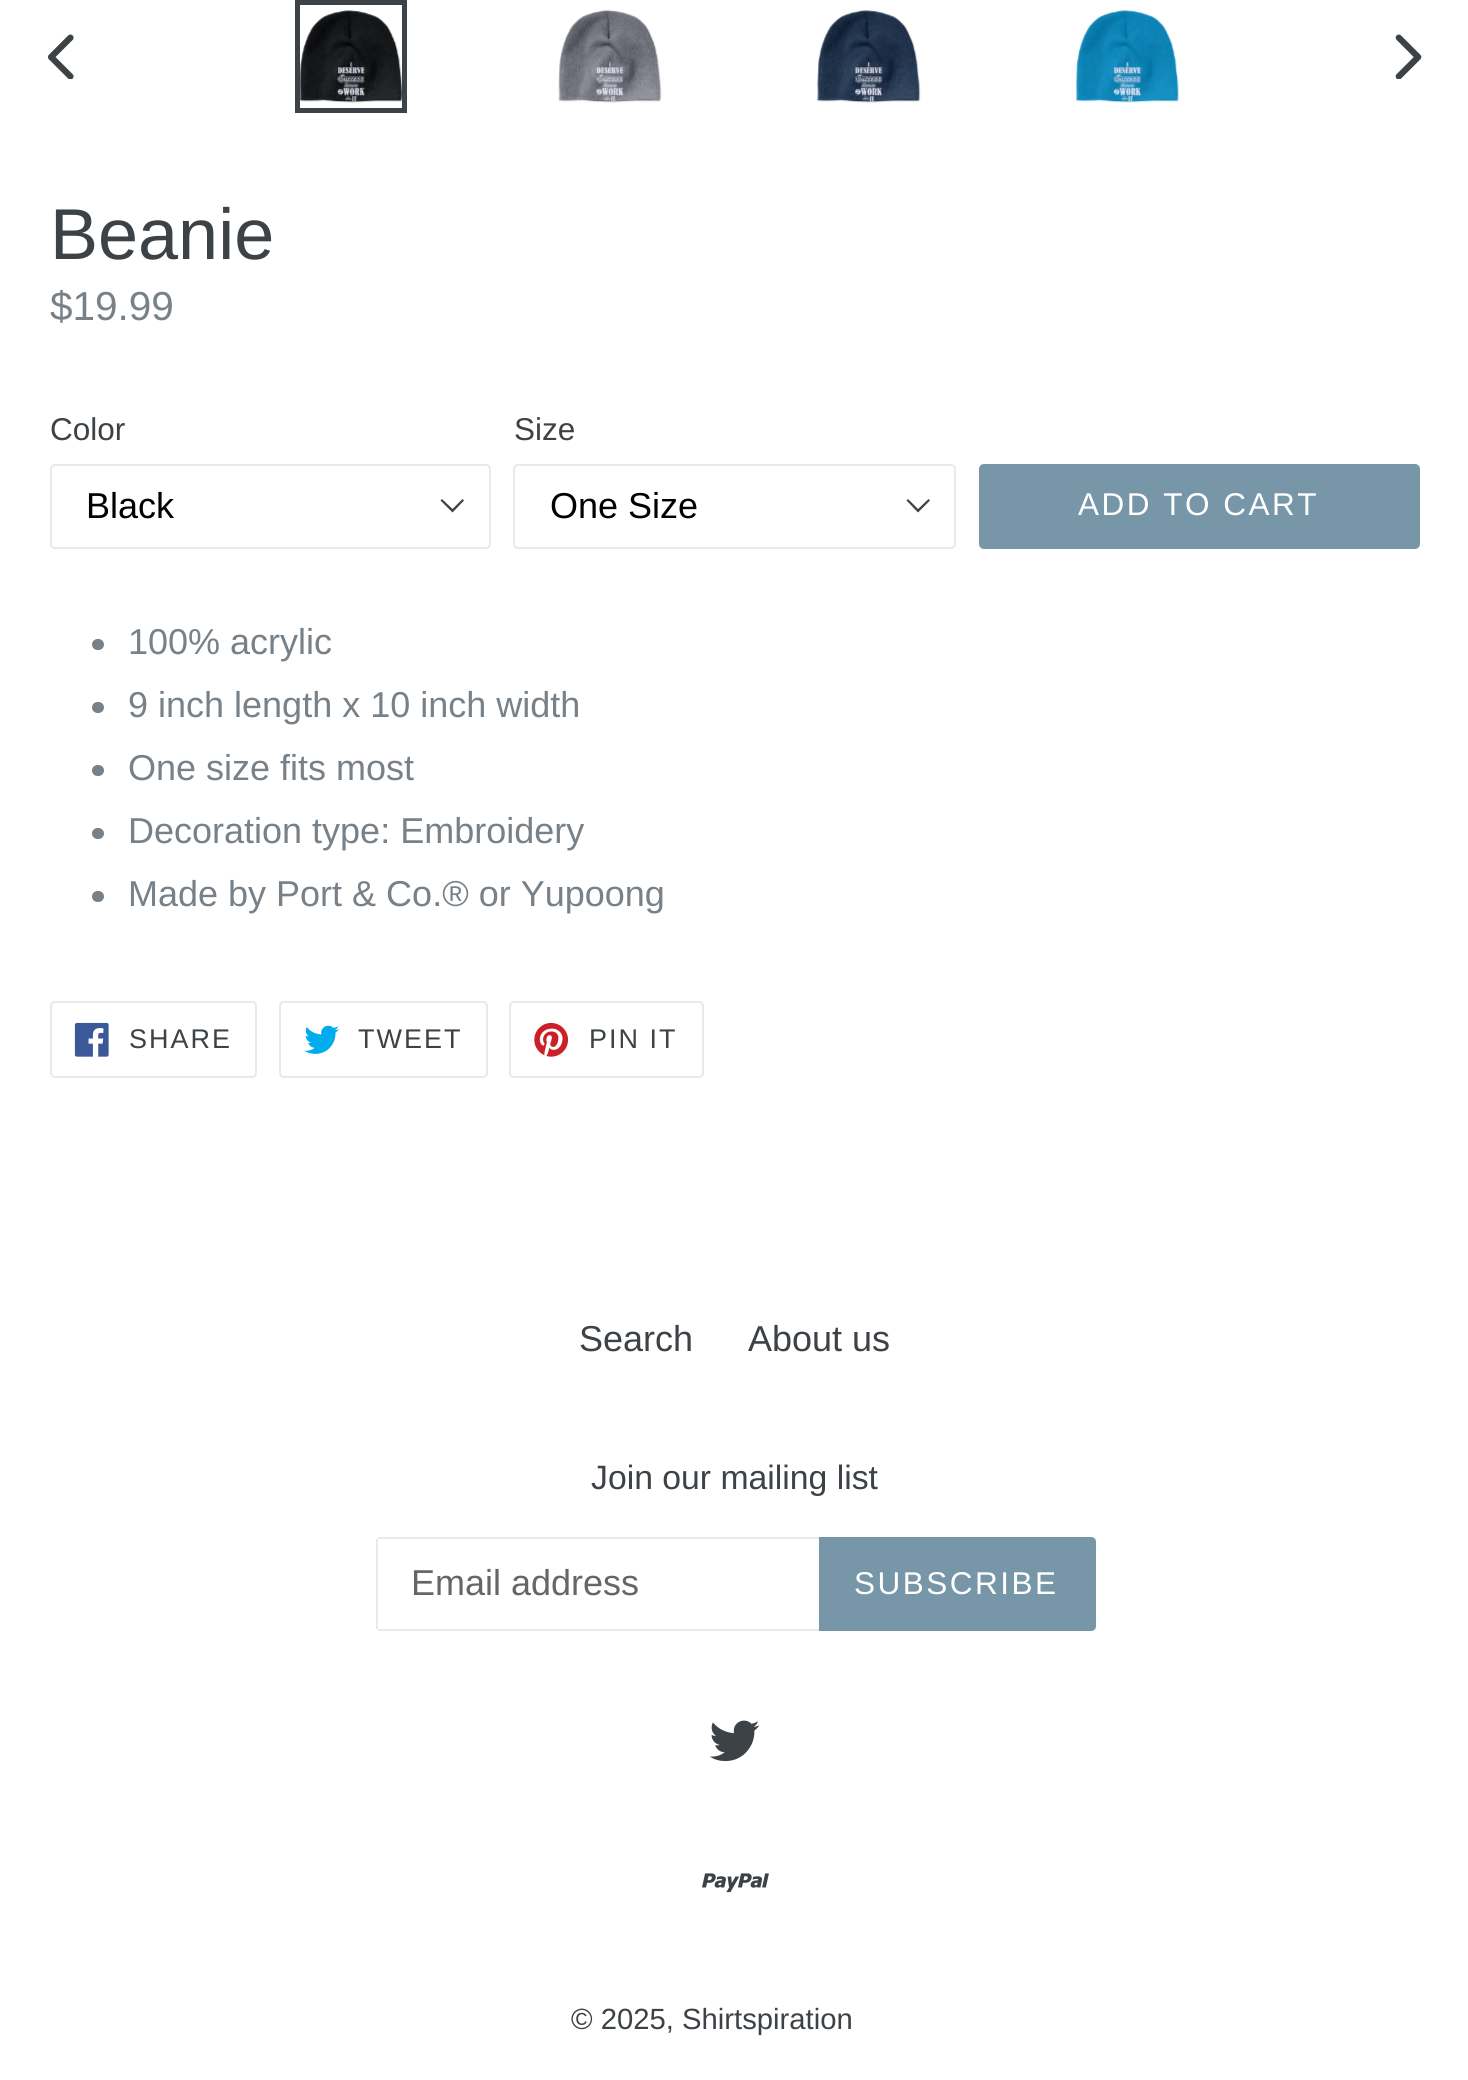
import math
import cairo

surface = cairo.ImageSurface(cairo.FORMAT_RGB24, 1468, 2080)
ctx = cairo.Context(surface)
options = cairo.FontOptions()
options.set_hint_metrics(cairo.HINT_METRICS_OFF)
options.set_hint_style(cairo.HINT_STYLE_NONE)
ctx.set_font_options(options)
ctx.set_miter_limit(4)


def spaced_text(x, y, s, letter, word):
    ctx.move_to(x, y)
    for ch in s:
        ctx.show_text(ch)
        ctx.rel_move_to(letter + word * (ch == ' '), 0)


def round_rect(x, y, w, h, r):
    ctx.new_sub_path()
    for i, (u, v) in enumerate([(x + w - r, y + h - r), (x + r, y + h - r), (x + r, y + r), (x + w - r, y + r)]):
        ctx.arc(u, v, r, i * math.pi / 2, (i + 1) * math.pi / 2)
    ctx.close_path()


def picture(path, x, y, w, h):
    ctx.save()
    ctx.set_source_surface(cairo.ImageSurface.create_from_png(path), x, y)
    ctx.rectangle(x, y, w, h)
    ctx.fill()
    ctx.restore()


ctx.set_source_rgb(1, 1, 1)
ctx.paint()
picture("img1.png", 48, 34, 26, 45)
ctx.rectangle(297.5, 2.5, 107, 108)
ctx.set_source_rgb(0.239, 0.259, 0.275)
ctx.set_line_width(5)
ctx.stroke()
picture("img2.png", 300, 10, 103, 93)
picture("img3.png", 558, 10, 104, 93)
picture("img4.png", 817, 10, 104, 93)
picture("img5.png", 1076, 10, 103, 93)
picture("img6.png", 1395, 34, 27, 45)
ctx.select_font_face("Liberation Sans")
ctx.set_font_size(72)
ctx.move_to(50, 259)
ctx.show_text("Beanie")
ctx.set_font_size(40.5)
ctx.set_source_rgb(0.471, 0.506, 0.533)
ctx.move_to(50, 320)
ctx.show_text("$19.99")
ctx.set_font_size(31.5)
ctx.set_source_rgb(0.239, 0.259, 0.275)
ctx.move_to(50, 440)
ctx.show_text("Color")
ctx.new_path()
ctx.move_to(452.5, 512.5)
ctx.line_to(440.5, 500.5)
ctx.line_to(442, 499)
ctx.line_to(452.5, 509)
ctx.line_to(462.5, 499)
ctx.line_to(464, 500.5)
ctx.close_path()
ctx.fill()
round_rect(51, 465, 439, 83, 4)
ctx.set_source_rgb(0.91, 0.914, 0.922)
ctx.set_line_width(2)
ctx.stroke()
ctx.set_font_size(36)
ctx.set_source_rgb(0, 0, 0)
ctx.move_to(86, 518)
ctx.show_text("Black")
ctx.set_font_size(31.5)
ctx.set_source_rgb(0.239, 0.259, 0.275)
ctx.move_to(514, 440)
ctx.show_text("Size")
ctx.new_path()
ctx.move_to(918, 512.5)
ctx.line_to(906.5, 500.5)
ctx.line_to(908, 499)
ctx.line_to(918, 509)
ctx.line_to(928.5, 499)
ctx.line_to(930, 500.5)
ctx.close_path()
ctx.fill()
round_rect(514, 465, 441, 83, 4)
ctx.set_source_rgb(0.91, 0.914, 0.922)
ctx.stroke()
ctx.set_font_size(36)
ctx.set_source_rgb(0, 0, 0)
ctx.move_to(550, 518)
ctx.show_text("One Size")
ctx.set_source_rgb(0.467, 0.588, 0.659)
round_rect(979, 464, 441, 85, 5)
ctx.fill()
ctx.set_font_size(31.5)
ctx.set_source_rgb(1, 1, 1)
spaced_text(1078, 515, "ADD TO CART", 2.5, 0)
ctx.set_source_rgb(0.471, 0.506, 0.533)
round_rect(92, 639, 12, 11, 5.5)
ctx.fill()
ctx.set_font_size(36)
ctx.move_to(128, 654)
ctx.show_text("100% acrylic")
round_rect(92, 702, 12, 11, 5.5)
ctx.fill()
ctx.move_to(128, 717)
ctx.show_text("9 inch length x 10 inch width")
round_rect(92, 765, 12, 11, 5.5)
ctx.fill()
ctx.move_to(128, 780)
ctx.show_text("One size fits most")
round_rect(92, 828, 12, 11, 5.5)
ctx.fill()
ctx.move_to(128, 843)
ctx.show_text("Decoration type: Embroidery")
round_rect(92, 891, 12, 11, 5.5)
ctx.fill()
ctx.move_to(128, 906)
ctx.show_text("Made by Port & Co.® or Yupoong")
round_rect(51, 1002, 205, 75, 4)
ctx.set_source_rgb(0.91, 0.914, 0.922)
ctx.stroke()
picture("img7.png", 74, 1022, 35, 35)
ctx.set_font_size(27)
ctx.set_source_rgb(0.239, 0.259, 0.275)
spaced_text(129, 1048, "SHARE", 2, 0)
round_rect(280, 1002, 207, 75, 4)
ctx.set_source_rgb(0.91, 0.914, 0.922)
ctx.stroke()
picture("img8.png", 304, 1025, 35, 29)
ctx.set_source_rgb(0.239, 0.259, 0.275)
spaced_text(358, 1048, "TWEET", 2, 0)
round_rect(510, 1002, 193, 75, 4)
ctx.set_source_rgb(0.91, 0.914, 0.922)
ctx.stroke()
picture("img9.png", 534, 1023, 34, 34)
ctx.set_source_rgb(0.239, 0.259, 0.275)
spaced_text(589, 1048, "PIN IT", 2, 0)
ctx.set_font_size(36)
ctx.move_to(579, 1351)
ctx.show_text("Search")
ctx.move_to(748, 1351)
ctx.show_text("About us")
ctx.set_font_size(33.75)
ctx.move_to(591, 1489)
ctx.show_text("Join our mailing list")
ctx.set_source_rgb(0.91, 0.914, 0.922)
ctx.rectangle(378, 1537, 441, 2)
ctx.fill()
ctx.rectangle(378, 1629, 441, 2)
ctx.fill()
ctx.rectangle(376, 1539, 2, 90)
ctx.fill()
ctx.set_font_size(36)
ctx.set_source_rgb(0.4, 0.4, 0.4)
ctx.move_to(411, 1595)
ctx.show_text("Email address")
ctx.set_source_rgb(0.467, 0.588, 0.659)
ctx.new_path()
ctx.move_to(819, 1537)
ctx.line_to(1091, 1537)
ctx.curve_to(1094, 1537, 1096, 1539, 1096, 1542)
ctx.line_to(1096, 1626)
ctx.curve_to(1096, 1629, 1094, 1631, 1091, 1631)
ctx.line_to(819, 1631)
ctx.close_path()
ctx.fill()
ctx.set_font_size(31.5)
ctx.set_source_rgb(1, 1, 1)
spaced_text(854, 1594, "SUBSCRIBE", 2.5, 0)
picture("img10.png", 709, 1720, 51, 42)
picture("img11.png", 702, 1873, 67, 20)
ctx.set_font_size(29.25)
ctx.set_source_rgb(0.239, 0.259, 0.275)
ctx.move_to(571, 2029)
ctx.show_text("© 2025, Shirtspiration")
surface.write_to_png("page.png")
